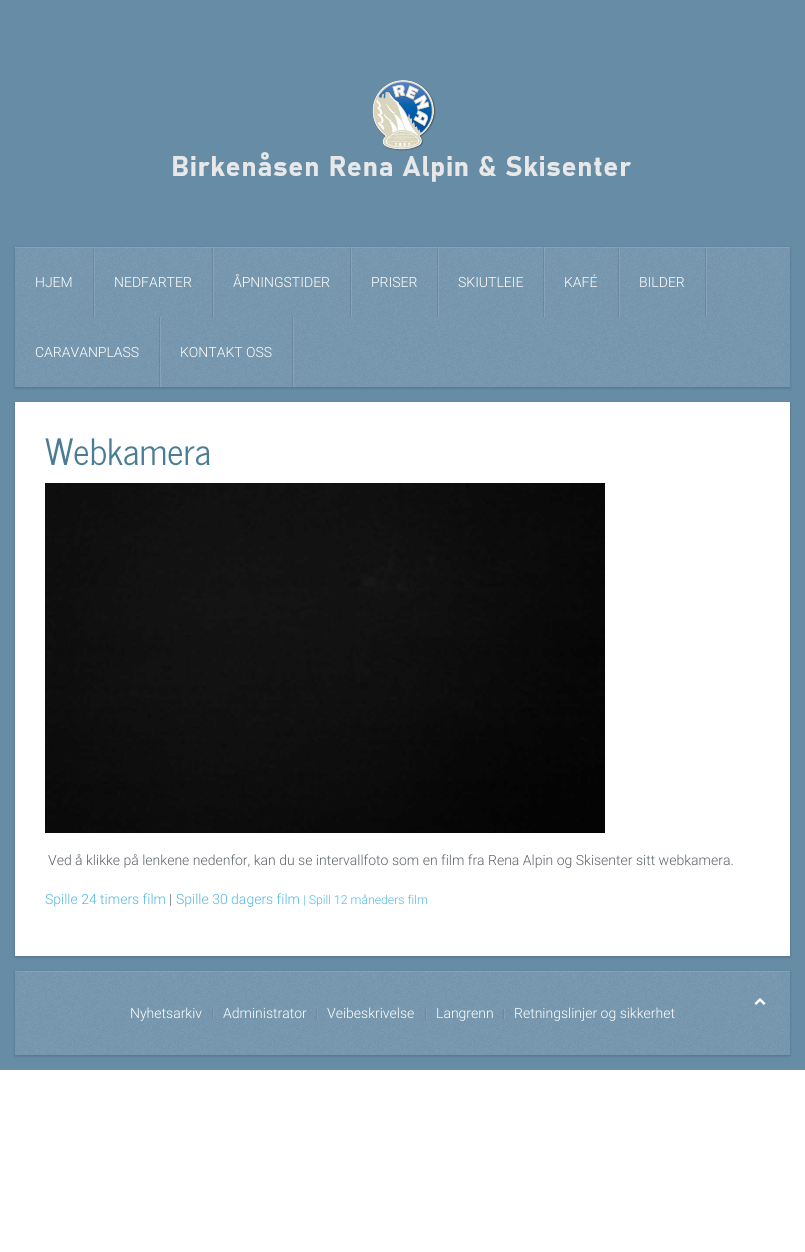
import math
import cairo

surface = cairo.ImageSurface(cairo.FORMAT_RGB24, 805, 1252)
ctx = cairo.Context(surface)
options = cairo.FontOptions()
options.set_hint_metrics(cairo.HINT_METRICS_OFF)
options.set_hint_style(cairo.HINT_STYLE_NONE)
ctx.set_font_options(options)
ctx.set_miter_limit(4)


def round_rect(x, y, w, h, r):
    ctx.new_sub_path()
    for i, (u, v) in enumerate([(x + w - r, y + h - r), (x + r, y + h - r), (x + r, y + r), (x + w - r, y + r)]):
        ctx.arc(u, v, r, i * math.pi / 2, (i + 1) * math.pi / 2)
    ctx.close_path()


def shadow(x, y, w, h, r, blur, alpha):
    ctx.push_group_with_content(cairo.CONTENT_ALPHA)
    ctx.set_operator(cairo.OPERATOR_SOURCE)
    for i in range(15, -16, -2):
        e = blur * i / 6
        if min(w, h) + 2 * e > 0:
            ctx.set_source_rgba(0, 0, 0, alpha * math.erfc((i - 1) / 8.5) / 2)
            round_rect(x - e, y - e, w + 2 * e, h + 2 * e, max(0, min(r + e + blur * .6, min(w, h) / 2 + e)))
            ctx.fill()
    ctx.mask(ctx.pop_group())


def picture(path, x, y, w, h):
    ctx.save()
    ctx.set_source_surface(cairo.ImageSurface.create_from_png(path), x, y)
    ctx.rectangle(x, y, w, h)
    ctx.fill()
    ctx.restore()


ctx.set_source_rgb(1, 1, 1)
ctx.paint()
ctx.set_source_rgb(0.404, 0.549, 0.651)
ctx.rectangle(0, 0, 805, 1070)
ctx.fill()
picture("img1.png", 173, 80, 458, 102)
ctx.set_source_rgb(0.118, 0.196, 0.275)
shadow(15, 248, 775, 140, 0, 1.5, 0.3)
ctx.set_source_rgb(0.463, 0.596, 0.686)
ctx.rectangle(15, 247, 775, 140)
ctx.fill()
picture("img2.png", 15, 247, 775, 140)
ctx.set_source_rgba(1, 1, 1, 0.12)
ctx.rectangle(15, 247, 775, 1)
ctx.fill()
ctx.rectangle(94, 247, 1, 70)
ctx.fill()
ctx.set_source_rgba(0, 0, 0, 0.1)
ctx.rectangle(93, 247, 1, 70)
ctx.fill()
ctx.select_font_face("Roboto Light")
ctx.set_font_size(14)
ctx.set_source_rgb(1, 1, 1)
ctx.move_to(35, 287)
ctx.show_text("HJEM")
ctx.set_source_rgba(1, 1, 1, 0.12)
ctx.rectangle(213, 247, 1, 70)
ctx.fill()
ctx.set_source_rgba(0, 0, 0, 0.1)
ctx.rectangle(212, 247, 1, 70)
ctx.fill()
ctx.set_source_rgb(1, 1, 1)
ctx.move_to(114, 287)
ctx.show_text("NEDFARTER")
ctx.set_source_rgba(1, 1, 1, 0.12)
ctx.rectangle(351, 247, 1, 70)
ctx.fill()
ctx.set_source_rgba(0, 0, 0, 0.1)
ctx.rectangle(350, 247, 1, 70)
ctx.fill()
ctx.set_source_rgb(1, 1, 1)
ctx.move_to(233, 287)
ctx.show_text("ÅPNINGSTIDER")
ctx.set_source_rgba(1, 1, 1, 0.12)
ctx.rectangle(438, 247, 1, 70)
ctx.fill()
ctx.set_source_rgba(0, 0, 0, 0.1)
ctx.rectangle(437, 247, 1, 70)
ctx.fill()
ctx.set_source_rgb(1, 1, 1)
ctx.move_to(371, 287)
ctx.show_text("PRISER")
ctx.set_source_rgba(1, 1, 1, 0.12)
ctx.rectangle(544, 247, 1, 70)
ctx.fill()
ctx.set_source_rgba(0, 0, 0, 0.1)
ctx.rectangle(543, 247, 1, 70)
ctx.fill()
ctx.set_source_rgb(1, 1, 1)
ctx.move_to(458, 287)
ctx.show_text("SKIUTLEIE")
ctx.set_source_rgba(1, 1, 1, 0.12)
ctx.rectangle(619, 247, 1, 70)
ctx.fill()
ctx.set_source_rgba(0, 0, 0, 0.1)
ctx.rectangle(618, 247, 1, 70)
ctx.fill()
ctx.set_source_rgb(1, 1, 1)
ctx.move_to(564, 287)
ctx.show_text("KAFÉ")
ctx.set_source_rgba(1, 1, 1, 0.12)
ctx.rectangle(706, 247, 1, 70)
ctx.fill()
ctx.set_source_rgba(0, 0, 0, 0.1)
ctx.rectangle(705, 247, 1, 70)
ctx.fill()
ctx.set_source_rgb(1, 1, 1)
ctx.move_to(639, 287)
ctx.show_text("BILDER")
ctx.set_source_rgba(1, 1, 1, 0.12)
ctx.rectangle(160, 317, 1, 70)
ctx.fill()
ctx.set_source_rgba(0, 0, 0, 0.1)
ctx.rectangle(159, 317, 1, 70)
ctx.fill()
ctx.set_source_rgb(1, 1, 1)
ctx.move_to(35, 357)
ctx.show_text("CARAVANPLASS")
ctx.set_source_rgba(1, 1, 1, 0.12)
ctx.rectangle(293, 317, 1, 70)
ctx.fill()
ctx.set_source_rgba(0, 0, 0, 0.1)
ctx.rectangle(292, 317, 1, 70)
ctx.fill()
ctx.set_source_rgb(1, 1, 1)
ctx.move_to(180, 357)
ctx.show_text("KONTAKT OSS")
ctx.set_source_rgb(0.118, 0.196, 0.275)
shadow(15, 403, 775, 554, 0, 1.5, 0.3)
ctx.set_source_rgb(1, 1, 1)
ctx.rectangle(15, 402, 775, 554)
ctx.fill()
ctx.select_font_face("News Cycle")
ctx.set_font_size(36)
ctx.set_source_rgb(0.286, 0.486, 0.584)
ctx.move_to(45, 465)
ctx.show_text("Webkamera")
picture("img3.png", 45, 483, 560, 350)
ctx.select_font_face("Roboto Light")
ctx.set_font_size(14)
ctx.set_source_rgb(0.361, 0.384, 0.42)
ctx.move_to(48, 865)
ctx.show_text("Ved å klikke på lenkene nedenfor, kan du se intervallfoto som en film fra Rena Alpin og Skisenter sitt webkamera.")
ctx.set_source_rgb(0.322, 0.722, 0.875)
ctx.move_to(45, 904)
ctx.show_text("Spille 24 timers film")
ctx.set_source_rgb(0.361, 0.384, 0.42)
ctx.move_to(169, 904)
ctx.show_text("|")
ctx.set_source_rgb(0.322, 0.722, 0.875)
ctx.move_to(176, 904)
ctx.show_text("Spille 30 dagers film")
ctx.set_font_size(12.25)
ctx.move_to(303, 904)
ctx.show_text("| Spill 12 måneders film")
ctx.set_source_rgb(0.118, 0.196, 0.275)
shadow(15, 972, 775, 84, 0, 1.5, 0.3)
ctx.set_source_rgb(0.463, 0.596, 0.686)
ctx.rectangle(15, 971, 775, 84)
ctx.fill()
picture("img4.png", 15, 971, 775, 84)
ctx.set_source_rgba(1, 1, 1, 0.12)
ctx.rectangle(15, 971, 775, 1)
ctx.fill()
picture("img5.png", 754, 998, 12, 7)
ctx.set_font_size(14)
ctx.set_source_rgb(1, 1, 1)
ctx.move_to(130, 1018)
ctx.show_text("Nyhetsarkiv")
ctx.set_source_rgba(1, 1, 1, 0.1)
ctx.rectangle(213, 1009, 1, 10)
ctx.fill()
ctx.set_source_rgba(0, 0, 0, 0.1)
ctx.rectangle(212, 1009, 1, 10)
ctx.fill()
ctx.set_source_rgb(1, 1, 1)
ctx.move_to(223, 1018)
ctx.show_text("Administrator")
ctx.set_source_rgba(1, 1, 1, 0.1)
ctx.rectangle(317, 1009, 1, 10)
ctx.fill()
ctx.set_source_rgba(0, 0, 0, 0.1)
ctx.rectangle(316, 1009, 1, 10)
ctx.fill()
ctx.set_source_rgb(1, 1, 1)
ctx.move_to(327, 1018)
ctx.show_text("Veibeskrivelse")
ctx.set_source_rgba(1, 1, 1, 0.1)
ctx.rectangle(426, 1009, 1, 10)
ctx.fill()
ctx.set_source_rgba(0, 0, 0, 0.1)
ctx.rectangle(425, 1009, 1, 10)
ctx.fill()
ctx.set_source_rgb(1, 1, 1)
ctx.move_to(436, 1018)
ctx.show_text("Langrenn")
ctx.set_source_rgba(1, 1, 1, 0.1)
ctx.rectangle(504, 1009, 1, 10)
ctx.fill()
ctx.set_source_rgba(0, 0, 0, 0.1)
ctx.rectangle(503, 1009, 1, 10)
ctx.fill()
ctx.set_source_rgb(1, 1, 1)
ctx.move_to(514, 1018)
ctx.show_text("Retningslinjer og sikkerhet")
surface.write_to_png("page.png")
